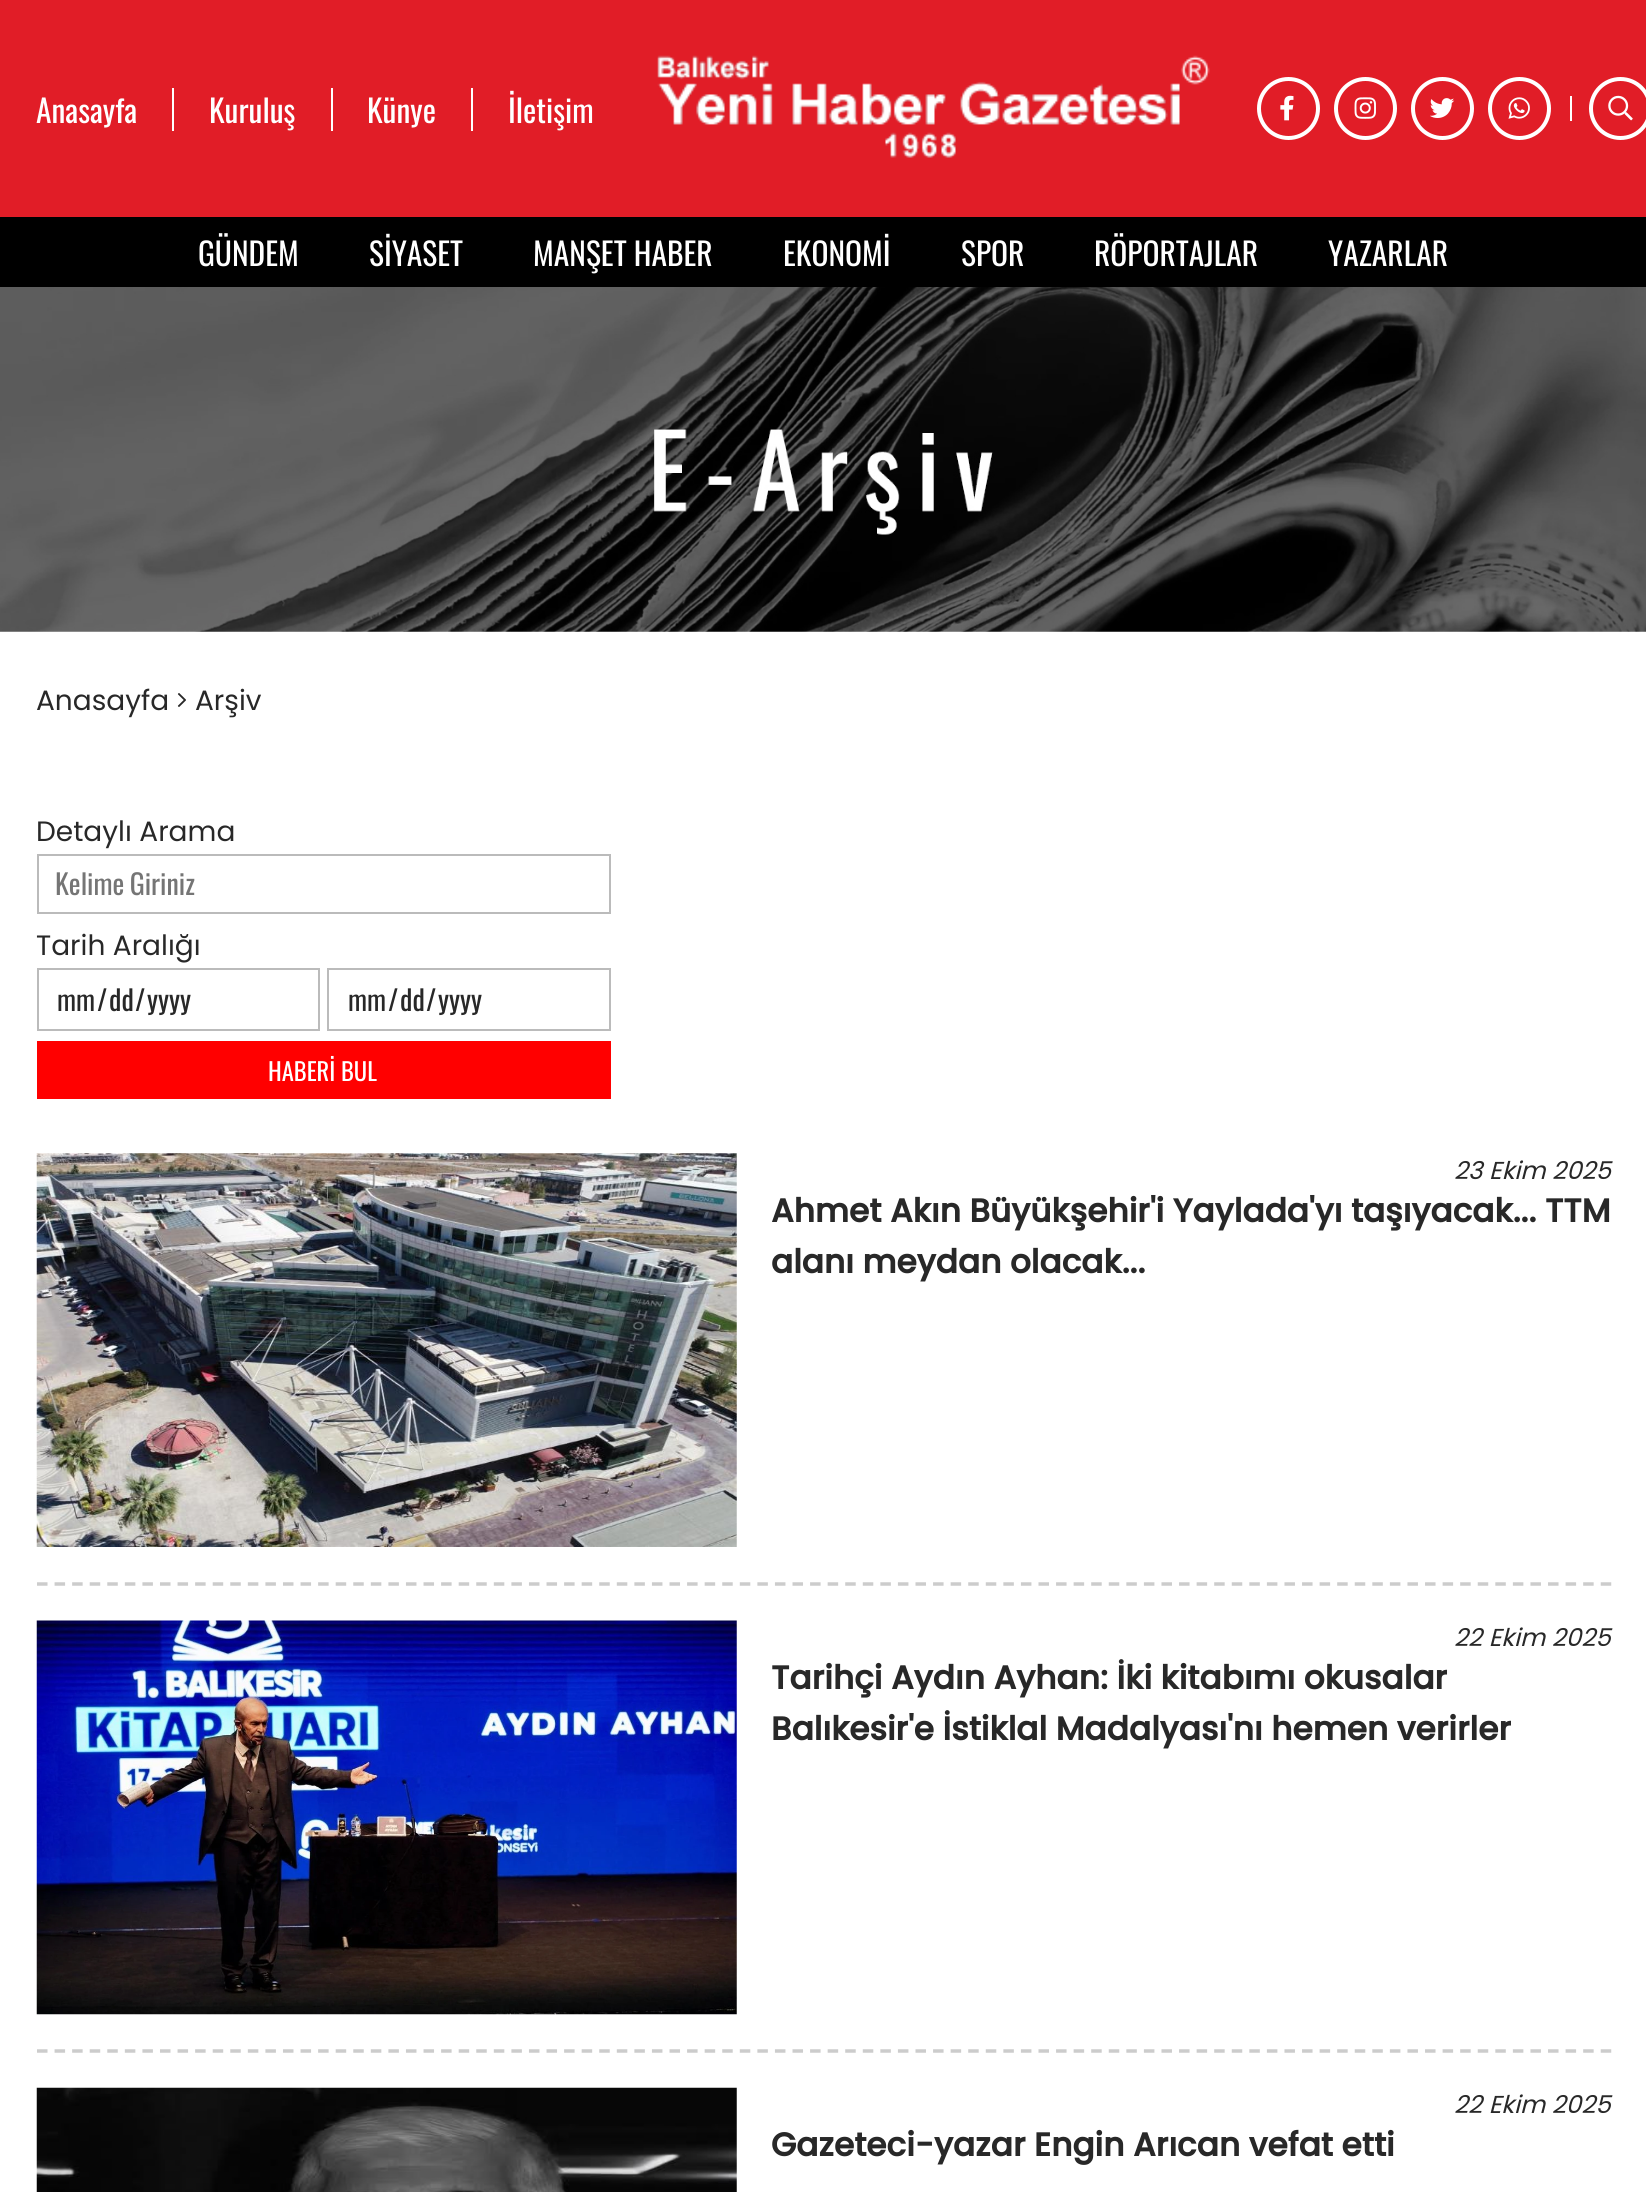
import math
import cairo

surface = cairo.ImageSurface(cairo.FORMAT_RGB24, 1646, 2192)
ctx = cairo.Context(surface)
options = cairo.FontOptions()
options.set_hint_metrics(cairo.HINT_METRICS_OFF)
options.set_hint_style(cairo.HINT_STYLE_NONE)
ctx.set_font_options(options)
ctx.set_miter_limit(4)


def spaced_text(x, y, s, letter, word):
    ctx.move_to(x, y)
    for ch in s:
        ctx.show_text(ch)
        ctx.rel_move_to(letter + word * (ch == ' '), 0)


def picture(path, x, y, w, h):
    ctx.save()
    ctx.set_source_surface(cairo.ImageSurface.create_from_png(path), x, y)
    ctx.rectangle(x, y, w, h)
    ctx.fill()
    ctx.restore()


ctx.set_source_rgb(1, 1, 1)
ctx.paint()
ctx.set_source_rgb(0.882, 0.114, 0.153)
ctx.rectangle(0, 0, 1646, 217)
ctx.fill()
ctx.select_font_face("Oswald")
ctx.set_font_size(31.5)
ctx.set_source_rgb(1, 1, 1)
ctx.move_to(36, 123)
ctx.show_text("Anasayfa")
ctx.rectangle(172, 88, 2, 43)
ctx.fill()
ctx.move_to(209, 123)
ctx.show_text("Kuruluş")
ctx.rectangle(331, 88, 2, 43)
ctx.fill()
ctx.move_to(367, 123)
ctx.show_text("Künye")
ctx.rectangle(471, 88, 2, 43)
ctx.fill()
ctx.move_to(508, 123)
ctx.show_text("İletişim")
picture("img1.png", 657, 55, 553, 103)
ctx.arc(1288.5, 108.5, 29.5, 0, 2 * math.pi)
ctx.set_line_width(4)
ctx.stroke()
picture("img2.png", 1280, 95, 14, 26)
ctx.arc(1365.5, 108.5, 29.5, 0, 2 * math.pi)
ctx.stroke()
picture("img3.png", 1354, 97, 22, 22)
ctx.arc(1442.5, 108.5, 29.5, 0, 2 * math.pi)
ctx.stroke()
picture("img4.png", 1430, 98, 25, 20)
ctx.arc(1519.5, 108.5, 29.5, 0, 2 * math.pi)
ctx.stroke()
picture("img5.png", 1508, 97, 22, 22)
ctx.rectangle(1570, 96, 2, 25)
ctx.fill()
ctx.arc(1620.5, 108.5, 29.5, 0, 2 * math.pi)
ctx.stroke()
picture("img6.png", 1608, 95, 25, 26)
ctx.set_source_rgb(0, 0, 0)
ctx.rectangle(0, 217, 1646, 70)
ctx.fill()
ctx.set_source_rgb(1, 1, 1)
ctx.move_to(198, 266)
ctx.show_text("GÜNDEM")
ctx.move_to(369, 266)
ctx.show_text("SİYASET")
ctx.move_to(533, 266)
ctx.show_text("MANŞET HABER")
ctx.move_to(783, 266)
ctx.show_text("EKONOMİ")
ctx.move_to(961, 266)
ctx.show_text("SPOR")
ctx.move_to(1094, 266)
ctx.show_text("RÖPORTAJLAR")
ctx.move_to(1328, 266)
ctx.show_text("YAZARLAR")
picture("img7.png", 0, 287, 1646, 345)
ctx.select_font_face("Poppins")
ctx.set_font_size(28)
ctx.set_source_rgb(0.157, 0.157, 0.157)
ctx.move_to(36, 710)
ctx.show_text("Anasayfa")
picture("img8.png", 177, 693, 9, 14)
ctx.move_to(195, 710)
ctx.show_text("Arşiv")
ctx.move_to(36, 841)
ctx.show_text("Detaylı Arama")
ctx.rectangle(38, 855, 572, 58)
ctx.set_source_rgb(0.733, 0.733, 0.733)
ctx.set_line_width(2)
ctx.stroke()
ctx.select_font_face("Oswald")
ctx.set_source_rgb(0.459, 0.459, 0.459)
spaced_text(55, 895, "Kelime Giriniz", 0, -1)
ctx.select_font_face("Poppins")
ctx.set_source_rgb(0.157, 0.157, 0.157)
ctx.move_to(36, 955)
ctx.show_text("Tarih Aralığı")
ctx.rectangle(38, 969, 281, 61)
ctx.set_source_rgb(0.733, 0.733, 0.733)
ctx.stroke()
ctx.select_font_face("Oswald")
ctx.set_source_rgb(0.157, 0.157, 0.157)
ctx.move_to(57, 1011)
ctx.show_text("mm")
ctx.move_to(97, 1011)
ctx.show_text("/")
ctx.move_to(109, 1011)
ctx.show_text("dd")
ctx.move_to(135, 1011)
ctx.show_text("/")
ctx.move_to(147, 1011)
ctx.show_text("yyyy")
ctx.rectangle(328, 969, 282, 61)
ctx.set_source_rgb(0.733, 0.733, 0.733)
ctx.stroke()
ctx.set_source_rgb(0.157, 0.157, 0.157)
ctx.move_to(348, 1011)
ctx.show_text("mm")
ctx.move_to(388, 1011)
ctx.show_text("/")
ctx.move_to(400, 1011)
ctx.show_text("dd")
ctx.move_to(426, 1011)
ctx.show_text("/")
ctx.move_to(438, 1011)
ctx.show_text("yyyy")
ctx.set_source_rgb(1, 0, 0)
ctx.rectangle(37, 1041, 574, 58)
ctx.fill()
ctx.set_font_size(24.5)
ctx.set_source_rgb(1, 1, 1)
ctx.move_to(268, 1081)
ctx.show_text("HABERİ BUL")
ctx.new_path()
ctx.move_to(37, 1584)
ctx.line_to(1612, 1584)
ctx.set_source_rgb(0.8, 0.8, 0.8)
ctx.set_line_width(3.5)
ctx.set_dash([10.5, 7.07])
ctx.stroke()
picture("img9.png", 36, 1153, 701, 394)
ctx.select_font_face("Poppins", cairo.FONT_SLANT_ITALIC)
ctx.set_source_rgb(0.157, 0.157, 0.157)
ctx.move_to(1454, 1179)
ctx.show_text("23 Ekim 2025")
ctx.select_font_face("Poppins", cairo.FONT_SLANT_NORMAL, cairo.FONT_WEIGHT_BOLD)
ctx.set_font_size(32.75)
ctx.move_to(771, 1222)
ctx.show_text("Ahmet Akın Büyükşehir'i Yaylada'yı taşıyacak... TTM")
ctx.move_to(771, 1273)
ctx.show_text("alanı meydan olacak...")
ctx.new_path()
ctx.move_to(37, 2051)
ctx.line_to(1612, 2051)
ctx.set_source_rgb(0.8, 0.8, 0.8)
ctx.stroke()
picture("img10.png", 36, 1620, 701, 395)
ctx.select_font_face("Poppins", cairo.FONT_SLANT_ITALIC)
ctx.set_font_size(24.5)
ctx.set_source_rgb(0.157, 0.157, 0.157)
ctx.move_to(1454, 1646)
ctx.show_text("22 Ekim 2025")
ctx.select_font_face("Poppins", cairo.FONT_SLANT_NORMAL, cairo.FONT_WEIGHT_BOLD)
ctx.set_font_size(32.75)
ctx.move_to(771, 1689)
ctx.show_text("Tarihçi Aydın Ayhan: İki kitabımı okusalar")
ctx.move_to(771, 1740)
ctx.show_text("Balıkesir'e İstiklal Madalyası'nı hemen verirler")
picture("img11.png", 36, 2087, 701, 105)
ctx.select_font_face("Poppins", cairo.FONT_SLANT_ITALIC)
ctx.set_font_size(24.5)
ctx.move_to(1454, 2113)
ctx.show_text("22 Ekim 2025")
ctx.select_font_face("Poppins", cairo.FONT_SLANT_NORMAL, cairo.FONT_WEIGHT_BOLD)
ctx.set_font_size(32.75)
ctx.move_to(771, 2156)
ctx.show_text("Gazeteci-yazar Engin Arıcan vefat etti")
surface.write_to_png("page.png")
